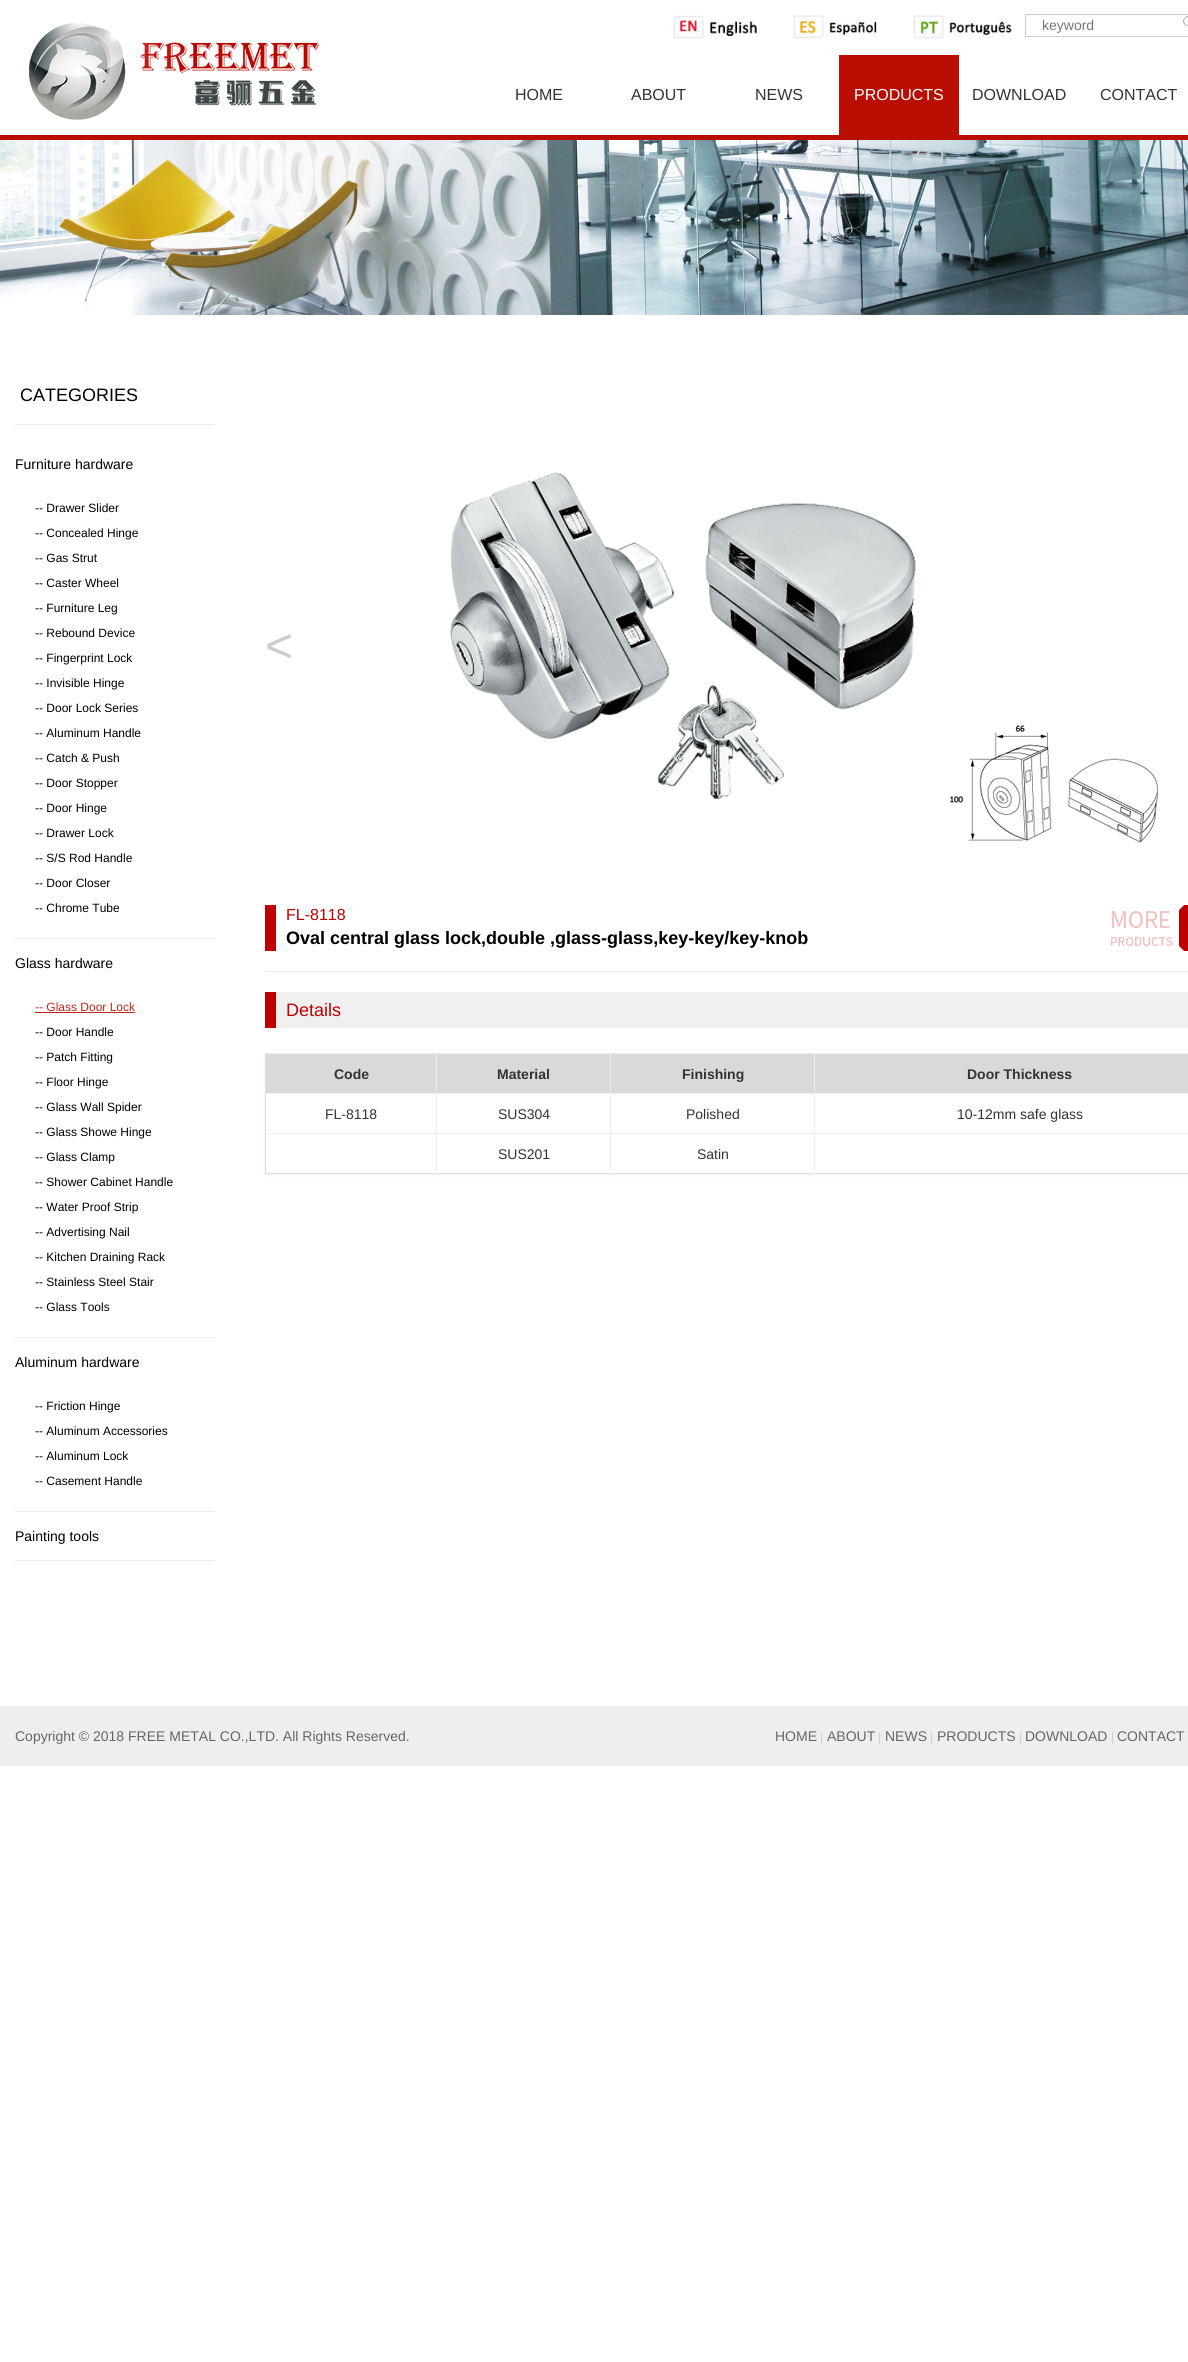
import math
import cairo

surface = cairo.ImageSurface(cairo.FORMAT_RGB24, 1188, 2362)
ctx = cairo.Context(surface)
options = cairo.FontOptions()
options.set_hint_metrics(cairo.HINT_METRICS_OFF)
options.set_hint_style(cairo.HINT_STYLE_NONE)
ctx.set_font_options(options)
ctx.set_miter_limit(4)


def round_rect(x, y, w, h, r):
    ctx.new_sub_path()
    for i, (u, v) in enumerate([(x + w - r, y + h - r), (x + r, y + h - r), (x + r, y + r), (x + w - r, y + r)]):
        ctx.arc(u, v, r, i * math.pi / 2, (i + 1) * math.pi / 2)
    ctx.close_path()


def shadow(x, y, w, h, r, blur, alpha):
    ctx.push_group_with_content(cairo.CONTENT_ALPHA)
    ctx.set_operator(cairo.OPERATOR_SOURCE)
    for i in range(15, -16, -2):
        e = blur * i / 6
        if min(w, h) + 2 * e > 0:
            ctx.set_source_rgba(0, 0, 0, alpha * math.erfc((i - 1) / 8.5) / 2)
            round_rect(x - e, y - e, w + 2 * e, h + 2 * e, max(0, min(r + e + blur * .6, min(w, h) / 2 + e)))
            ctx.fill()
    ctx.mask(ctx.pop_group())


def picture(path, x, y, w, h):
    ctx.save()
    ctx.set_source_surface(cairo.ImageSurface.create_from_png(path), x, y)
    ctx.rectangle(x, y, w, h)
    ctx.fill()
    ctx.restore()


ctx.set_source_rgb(1, 1, 1)
ctx.paint()
ctx.set_source_rgb(0.729, 0.055, 0.008)
ctx.rectangle(0, 135, 1188, 5)
ctx.fill()
picture("img1.png", 29, 23, 290, 97)
picture("img2.png", 673, 15, 84, 24)
picture("img3.png", 793, 15, 84, 24)
picture("img4.png", 913, 15, 99, 24)
ctx.rectangle(1025.5, 14.5, 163, 22)
ctx.set_source_rgb(0.8, 0.8, 0.8)
ctx.set_line_width(1)
ctx.stroke()
ctx.select_font_face("Liberation Sans")
ctx.set_font_size(14)
ctx.set_source_rgb(0.459, 0.459, 0.459)
ctx.move_to(1042, 30)
ctx.show_text("keyword")
picture("img5.png", 1183, 16, 5, 11)
ctx.set_font_size(16)
ctx.set_source_rgb(0.2, 0.2, 0.2)
ctx.move_to(515, 100)
ctx.show_text("HOME")
ctx.move_to(631, 100)
ctx.show_text("ABOUT")
ctx.move_to(755, 100)
ctx.show_text("NEWS")
ctx.set_source_rgb(0.729, 0.055, 0.008)
ctx.rectangle(839, 55, 120, 80)
ctx.fill()
ctx.set_source_rgb(1, 1, 1)
ctx.move_to(854, 100)
ctx.show_text("PRODUCTS")
ctx.set_source_rgb(0.2, 0.2, 0.2)
ctx.move_to(972, 100)
ctx.show_text("DOWNLOAD")
ctx.move_to(1100, 100)
ctx.show_text("CONTACT")
picture("img6.png", 0, 140, 1188, 175)
ctx.set_source_rgb(0.925, 0.922, 0.922)
ctx.rectangle(15, 424, 200, 1)
ctx.fill()
ctx.set_font_size(18)
ctx.set_source_rgb(0, 0, 0)
ctx.move_to(20, 401)
ctx.show_text("CATEGORIES")
ctx.set_source_rgb(0.925, 0.922, 0.922)
ctx.rectangle(15, 938, 200, 1)
ctx.fill()
ctx.set_font_size(14)
ctx.set_source_rgb(0, 0, 0)
ctx.move_to(15, 469)
ctx.show_text("Furniture hardware")
ctx.set_font_size(12)
ctx.move_to(35, 512)
ctx.show_text("-- Drawer Slider")
ctx.move_to(35, 537)
ctx.show_text("-- Concealed Hinge")
ctx.move_to(35, 562)
ctx.show_text("-- Gas Strut")
ctx.move_to(35, 587)
ctx.show_text("-- Caster Wheel")
ctx.move_to(35, 612)
ctx.show_text("-- Furniture Leg")
ctx.move_to(35, 637)
ctx.show_text("-- Rebound Device")
ctx.move_to(35, 662)
ctx.show_text("-- Fingerprint Lock")
ctx.move_to(35, 687)
ctx.show_text("-- Invisible Hinge")
ctx.move_to(35, 712)
ctx.show_text("-- Door Lock Series")
ctx.move_to(35, 737)
ctx.show_text("-- Aluminum Handle")
ctx.move_to(35, 762)
ctx.show_text("-- Catch & Push")
ctx.move_to(35, 787)
ctx.show_text("-- Door Stopper")
ctx.move_to(35, 812)
ctx.show_text("-- Door Hinge")
ctx.move_to(35, 837)
ctx.show_text("-- Drawer Lock")
ctx.move_to(35, 862)
ctx.show_text("-- S/S Rod Handle")
ctx.move_to(35, 887)
ctx.show_text("-- Door Closer")
ctx.move_to(35, 912)
ctx.show_text("-- Chrome Tube")
ctx.set_source_rgb(0.925, 0.922, 0.922)
ctx.rectangle(15, 1337, 200, 1)
ctx.fill()
ctx.set_font_size(14)
ctx.set_source_rgb(0, 0, 0)
ctx.move_to(15, 968)
ctx.show_text("Glass hardware")
ctx.set_font_size(12)
ctx.set_source_rgb(0.757, 0.149, 0.106)
ctx.move_to(35, 1011)
ctx.show_text("-- Glass Door Lock")
ctx.rectangle(35, 1012, 100, 1)
ctx.fill()
ctx.set_source_rgb(0, 0, 0)
ctx.move_to(35, 1036)
ctx.show_text("-- Door Handle")
ctx.move_to(35, 1061)
ctx.show_text("-- Patch Fitting")
ctx.move_to(35, 1086)
ctx.show_text("-- Floor Hinge")
ctx.move_to(35, 1111)
ctx.show_text("-- Glass Wall Spider")
ctx.move_to(35, 1136)
ctx.show_text("-- Glass Showe Hinge")
ctx.move_to(35, 1161)
ctx.show_text("-- Glass Clamp")
ctx.move_to(35, 1186)
ctx.show_text("-- Shower Cabinet Handle")
ctx.move_to(35, 1211)
ctx.show_text("-- Water Proof Strip")
ctx.move_to(35, 1236)
ctx.show_text("-- Advertising Nail")
ctx.move_to(35, 1261)
ctx.show_text("-- Kitchen Draining Rack")
ctx.move_to(35, 1286)
ctx.show_text("-- Stainless Steel Stair")
ctx.move_to(35, 1311)
ctx.show_text("-- Glass Tools")
ctx.set_source_rgb(0.925, 0.922, 0.922)
ctx.rectangle(15, 1511, 200, 1)
ctx.fill()
ctx.set_font_size(14)
ctx.set_source_rgb(0, 0, 0)
ctx.move_to(15, 1367)
ctx.show_text("Aluminum hardware")
ctx.set_font_size(12)
ctx.move_to(35, 1410)
ctx.show_text("-- Friction Hinge")
ctx.move_to(35, 1435)
ctx.show_text("-- Aluminum Accessories")
ctx.move_to(35, 1460)
ctx.show_text("-- Aluminum Lock")
ctx.move_to(35, 1485)
ctx.show_text("-- Casement Handle")
ctx.set_source_rgb(0.925, 0.922, 0.922)
ctx.rectangle(15, 1560, 200, 1)
ctx.fill()
ctx.set_font_size(14)
ctx.set_source_rgb(0, 0, 0)
ctx.move_to(15, 1541)
ctx.show_text("Painting tools")
ctx.set_font_size(48)
ctx.set_source_rgb(0.8, 0.8, 0.8)
ctx.move_to(265, 662)
ctx.show_text("<")
picture("img7.png", 449, 472, 709, 371)
ctx.set_source_rgb(0.745, 0, 0)
ctx.rectangle(265, 905, 11, 46)
ctx.fill()
ctx.set_font_size(16)
ctx.move_to(286, 920)
ctx.show_text("FL-8118")
picture("img8.png", 1111, 905, 77, 46)
ctx.select_font_face("Liberation Sans", cairo.FONT_SLANT_NORMAL, cairo.FONT_WEIGHT_BOLD)
ctx.set_font_size(18)
ctx.set_source_rgb(0, 0, 0)
ctx.move_to(286, 944)
ctx.show_text("Oval central glass lock,double ,glass-glass,key-key/key-knob")
ctx.set_source_rgb(0.933, 0.933, 0.933)
ctx.rectangle(265, 971, 923, 1)
ctx.fill()
ctx.set_source_rgb(0.941, 0.941, 0.941)
ctx.rectangle(276, 992, 912, 36)
ctx.fill()
ctx.set_source_rgb(0.745, 0, 0)
ctx.rectangle(265, 992, 11, 36)
ctx.fill()
ctx.select_font_face("Liberation Sans")
ctx.move_to(286, 1016)
ctx.show_text("Details")
ctx.save()
ctx.set_fill_rule(cairo.FILL_RULE_EVEN_ODD)
ctx.new_path()
ctx.move_to(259, 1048)
ctx.line_to(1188, 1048)
ctx.line_to(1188, 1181)
ctx.line_to(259, 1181)
ctx.close_path()
ctx.move_to(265, 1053)
ctx.line_to(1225, 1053)
ctx.line_to(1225, 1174)
ctx.line_to(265, 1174)
ctx.close_path()
ctx.clip()
ctx.set_source_rgb(0, 0, 0)
shadow(265, 1054, 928, 121, 0, 1.5, 0.07)
ctx.restore()
ctx.set_source_rgb(0.867, 0.867, 0.867)
ctx.rectangle(265, 1173, 923, 1)
ctx.fill()
ctx.rectangle(265, 1053, 1, 121)
ctx.fill()
ctx.set_source_rgb(0.851, 0.851, 0.851)
ctx.rectangle(266, 1054, 922, 39)
ctx.fill()
ctx.set_source_rgb(0.933, 0.933, 0.933)
ctx.rectangle(814, 1053, 374, 1)
ctx.fill()
ctx.rectangle(814, 1093, 374, 1)
ctx.fill()
ctx.rectangle(814, 1133, 374, 1)
ctx.fill()
ctx.rectangle(814, 1133, 1, 41)
ctx.fill()
ctx.rectangle(610, 1133, 205, 1)
ctx.fill()
ctx.rectangle(814, 1093, 1, 41)
ctx.fill()
ctx.rectangle(610, 1093, 205, 1)
ctx.fill()
ctx.rectangle(814, 1053, 1, 41)
ctx.fill()
ctx.rectangle(610, 1053, 205, 1)
ctx.fill()
ctx.rectangle(610, 1133, 1, 41)
ctx.fill()
ctx.rectangle(436, 1133, 175, 1)
ctx.fill()
ctx.rectangle(610, 1093, 1, 41)
ctx.fill()
ctx.rectangle(436, 1093, 175, 1)
ctx.fill()
ctx.rectangle(610, 1053, 1, 41)
ctx.fill()
ctx.rectangle(436, 1053, 175, 1)
ctx.fill()
ctx.rectangle(436, 1133, 1, 41)
ctx.fill()
ctx.rectangle(265, 1133, 172, 1)
ctx.fill()
ctx.rectangle(436, 1093, 1, 41)
ctx.fill()
ctx.rectangle(265, 1093, 172, 1)
ctx.fill()
ctx.rectangle(436, 1053, 1, 41)
ctx.fill()
ctx.rectangle(265, 1053, 172, 1)
ctx.fill()
ctx.select_font_face("Liberation Sans", cairo.FONT_SLANT_NORMAL, cairo.FONT_WEIGHT_BOLD)
ctx.set_font_size(14)
ctx.set_source_rgb(0.2, 0.2, 0.2)
ctx.move_to(334, 1079)
ctx.show_text("Code")
ctx.move_to(497, 1079)
ctx.show_text("Material")
ctx.move_to(682, 1079)
ctx.show_text("Finishing")
ctx.move_to(967, 1079)
ctx.show_text("Door Thickness")
ctx.select_font_face("Liberation Sans")
ctx.move_to(325, 1119)
ctx.show_text("FL-8118")
ctx.move_to(498, 1119)
ctx.show_text("SUS304")
ctx.move_to(686, 1119)
ctx.show_text("Polished")
ctx.move_to(957, 1119)
ctx.show_text("10-12mm safe glass")
ctx.move_to(498, 1159)
ctx.show_text("SUS201")
ctx.move_to(697, 1159)
ctx.show_text("Satin")
ctx.set_source_rgb(0.933, 0.933, 0.933)
ctx.rectangle(0, 1706, 1188, 60)
ctx.fill()
ctx.set_source_rgb(0.4, 0.4, 0.4)
ctx.move_to(15, 1741)
ctx.show_text("Copyright © 2018 FREE METAL CO.,LTD. All Rights Reserved.")
ctx.move_to(775, 1741)
ctx.show_text("HOME")
ctx.set_font_size(12)
ctx.set_source_rgb(0.8, 0.8, 0.8)
ctx.move_to(820, 1741)
ctx.show_text("|")
ctx.set_font_size(14)
ctx.set_source_rgb(0.4, 0.4, 0.4)
ctx.move_to(827, 1741)
ctx.show_text("ABOUT")
ctx.set_font_size(12)
ctx.set_source_rgb(0.8, 0.8, 0.8)
ctx.move_to(878, 1741)
ctx.show_text("|")
ctx.set_font_size(14)
ctx.set_source_rgb(0.4, 0.4, 0.4)
ctx.move_to(885, 1741)
ctx.show_text("NEWS")
ctx.set_font_size(12)
ctx.set_source_rgb(0.8, 0.8, 0.8)
ctx.move_to(930, 1741)
ctx.show_text("|")
ctx.set_font_size(14)
ctx.set_source_rgb(0.4, 0.4, 0.4)
ctx.move_to(937, 1741)
ctx.show_text("PRODUCTS")
ctx.set_font_size(12)
ctx.set_source_rgb(0.8, 0.8, 0.8)
ctx.move_to(1019, 1741)
ctx.show_text("|")
ctx.set_font_size(14)
ctx.set_source_rgb(0.4, 0.4, 0.4)
ctx.move_to(1025, 1741)
ctx.show_text("DOWNLOAD")
ctx.set_font_size(12)
ctx.set_source_rgb(0.8, 0.8, 0.8)
ctx.move_to(1111, 1741)
ctx.show_text("|")
ctx.set_font_size(14)
ctx.set_source_rgb(0.4, 0.4, 0.4)
ctx.move_to(1117, 1741)
ctx.show_text("CONTACT")
surface.write_to_png("page.png")
